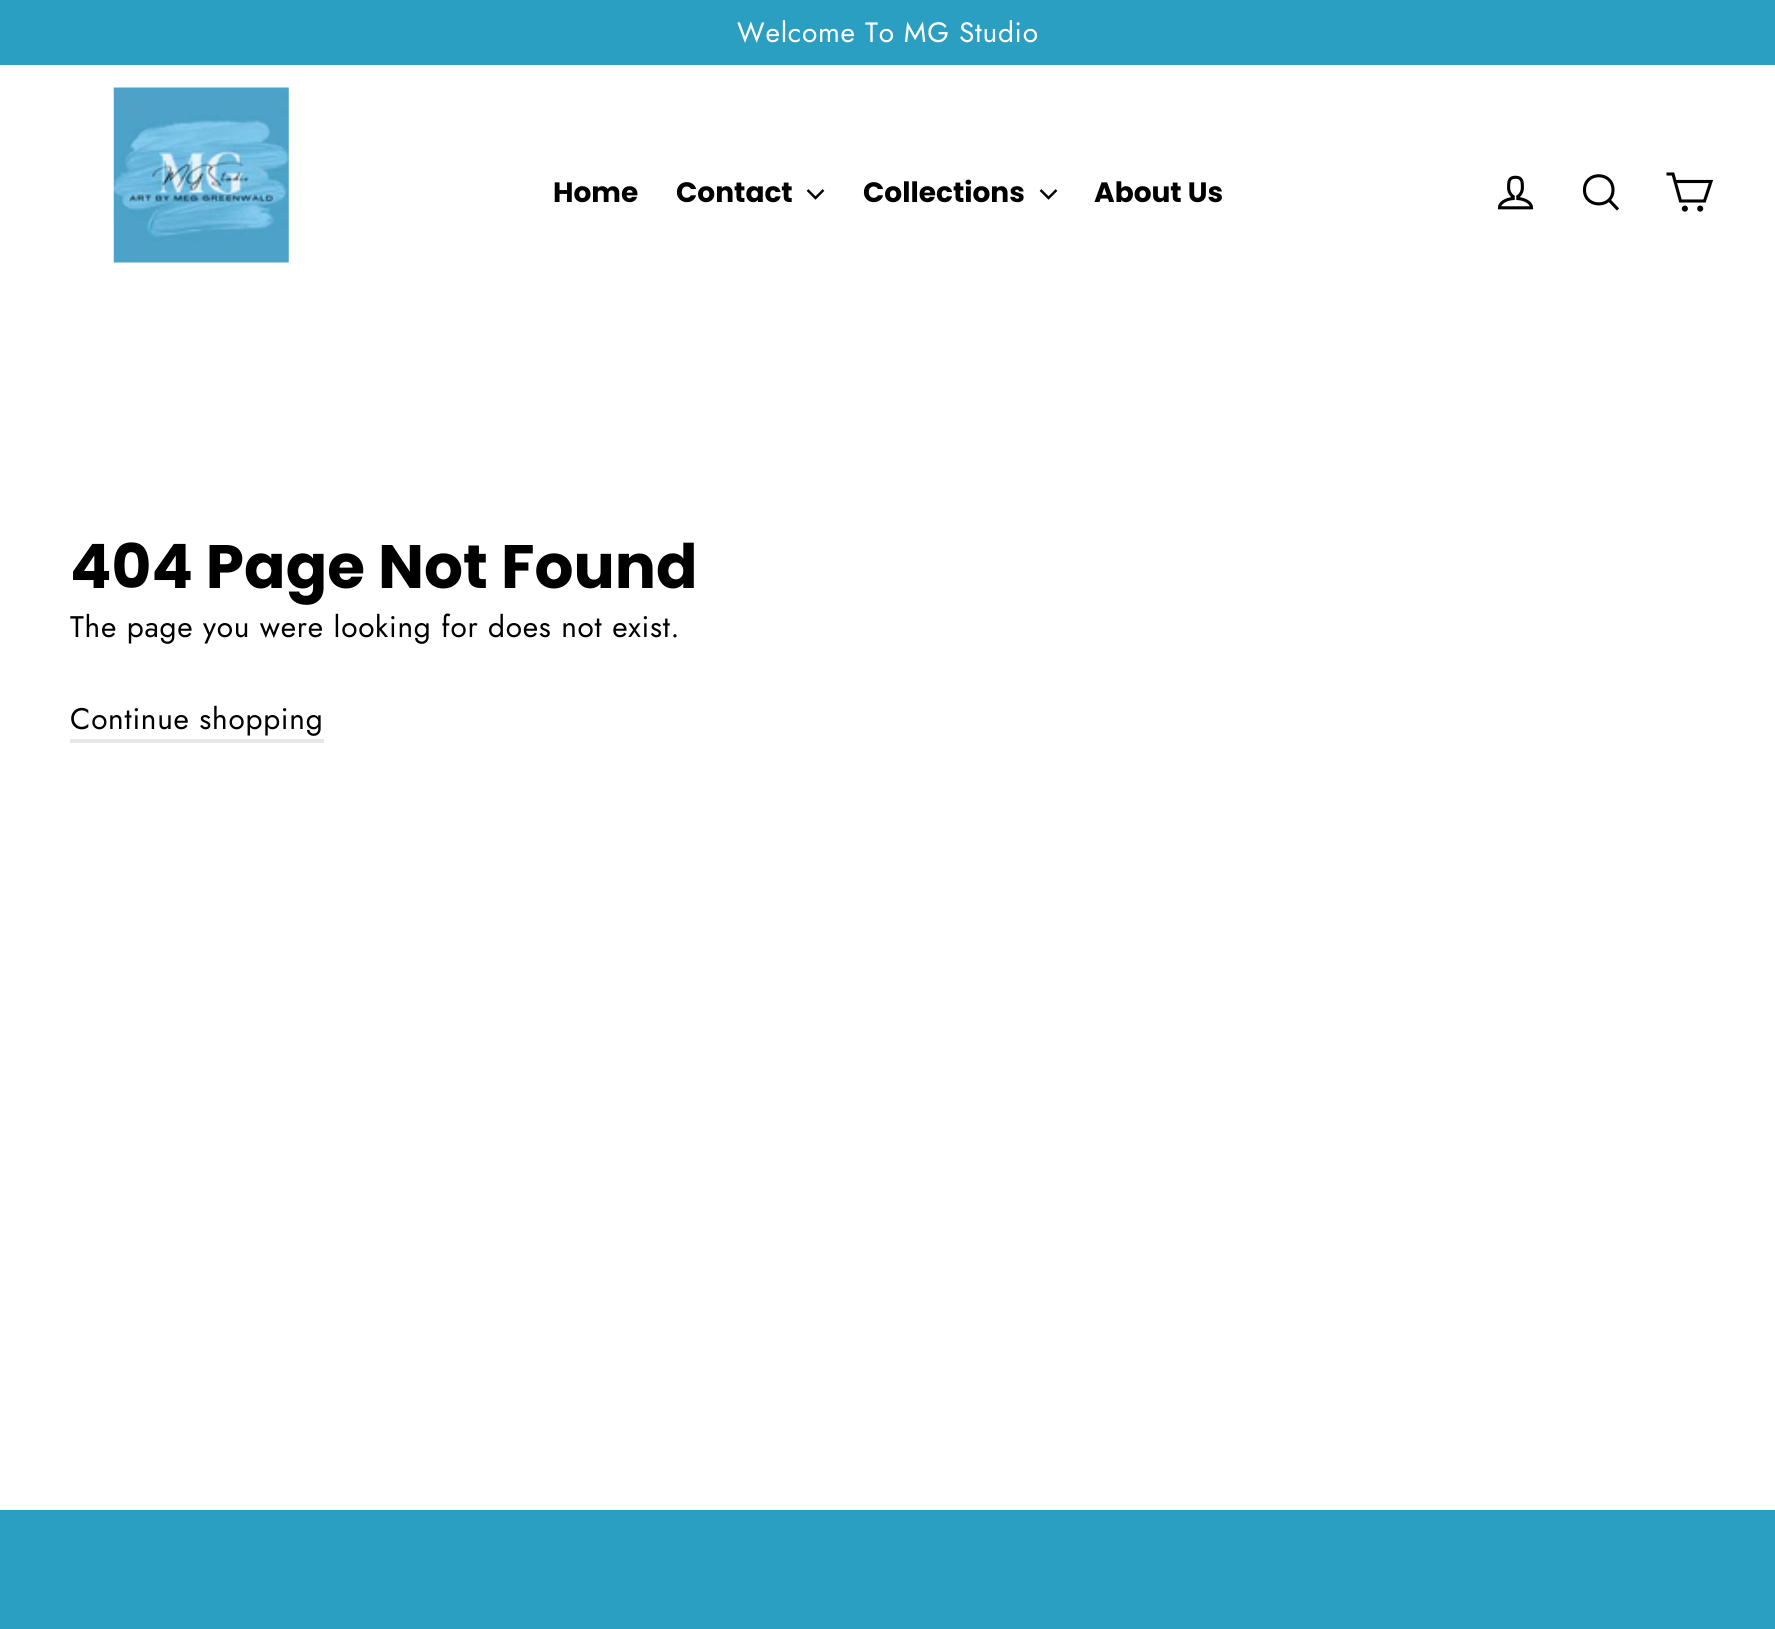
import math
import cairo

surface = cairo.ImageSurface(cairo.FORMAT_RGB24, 1775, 1629)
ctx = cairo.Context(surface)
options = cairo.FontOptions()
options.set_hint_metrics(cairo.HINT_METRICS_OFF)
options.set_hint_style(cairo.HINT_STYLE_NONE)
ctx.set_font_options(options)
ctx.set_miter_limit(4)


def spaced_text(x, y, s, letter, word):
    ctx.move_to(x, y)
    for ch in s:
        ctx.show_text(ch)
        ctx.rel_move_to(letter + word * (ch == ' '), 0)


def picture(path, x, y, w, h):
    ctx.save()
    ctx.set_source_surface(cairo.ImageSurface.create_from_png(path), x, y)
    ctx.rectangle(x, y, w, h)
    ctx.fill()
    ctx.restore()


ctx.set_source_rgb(1, 1, 1)
ctx.paint()
ctx.set_source_rgb(0.165, 0.624, 0.757)
ctx.rectangle(0, 0, 1775, 65)
ctx.fill()
ctx.select_font_face("Jost")
ctx.set_font_size(28)
ctx.set_source_rgb(1, 1, 1)
spaced_text(737, 42, "Welcome To MG Studio", 0.75, 0)
picture("img1.png", 113, 87, 176, 176)
ctx.select_font_face("Poppins", cairo.FONT_SLANT_NORMAL, cairo.FONT_WEIGHT_BOLD)
ctx.set_source_rgb(0, 0, 0)
ctx.move_to(553, 202)
ctx.show_text("Home")
ctx.move_to(676, 202)
ctx.show_text("Contact")
ctx.new_path()
ctx.move_to(807.5, 190)
ctx.line_to(815.5, 198)
ctx.line_to(823.5, 190)
ctx.set_line_width(2.5)
ctx.stroke()
ctx.move_to(863, 202)
ctx.show_text("Collections")
ctx.new_path()
ctx.move_to(1040.5, 190)
ctx.line_to(1048.5, 198)
ctx.line_to(1056.5, 190)
ctx.stroke()
ctx.move_to(1094, 202)
ctx.show_text("About Us")
picture("img2.png", 1497, 175, 37, 35)
ctx.new_path()
ctx.move_to(1613, 190)
ctx.curve_to(1613, 208.5, 1584.5, 208.5, 1584.5, 190)
ctx.curve_to(1584.5, 171, 1613, 171, 1613, 190)
ctx.close_path()
ctx.move_to(1618, 209.5)
ctx.line_to(1609, 200)
ctx.set_line_width(3.1)
ctx.stroke()
ctx.new_path()
ctx.move_to(1675, 181.5)
ctx.line_to(1711, 181.5)
ctx.line_to(1704.5, 201)
ctx.line_to(1680.5, 201)
ctx.line_to(1673, 174)
ctx.line_to(1666.5, 174)
ctx.stroke()
ctx.arc(1684.9, 208.6, 1.5, 0, 2 * math.pi)
ctx.stroke()
ctx.arc(1700.2, 208.6, 1.5, 0, 2 * math.pi)
ctx.stroke()
ctx.set_font_size(61.25)
ctx.move_to(70, 588)
ctx.show_text("404 Page Not Found")
ctx.select_font_face("Jost")
ctx.set_font_size(29.75)
spaced_text(70, 637, "The page you were looking for does not exist.", 0.75, 0)
spaced_text(70, 729, "Continue shopping", 0.75, 0)
ctx.set_source_rgb(0.902, 0.902, 0.902)
ctx.rectangle(70, 739, 254, 4)
ctx.fill()
ctx.set_source_rgb(0.165, 0.624, 0.757)
ctx.rectangle(0, 1510, 1775, 119)
ctx.fill()
surface.write_to_png("page.png")
